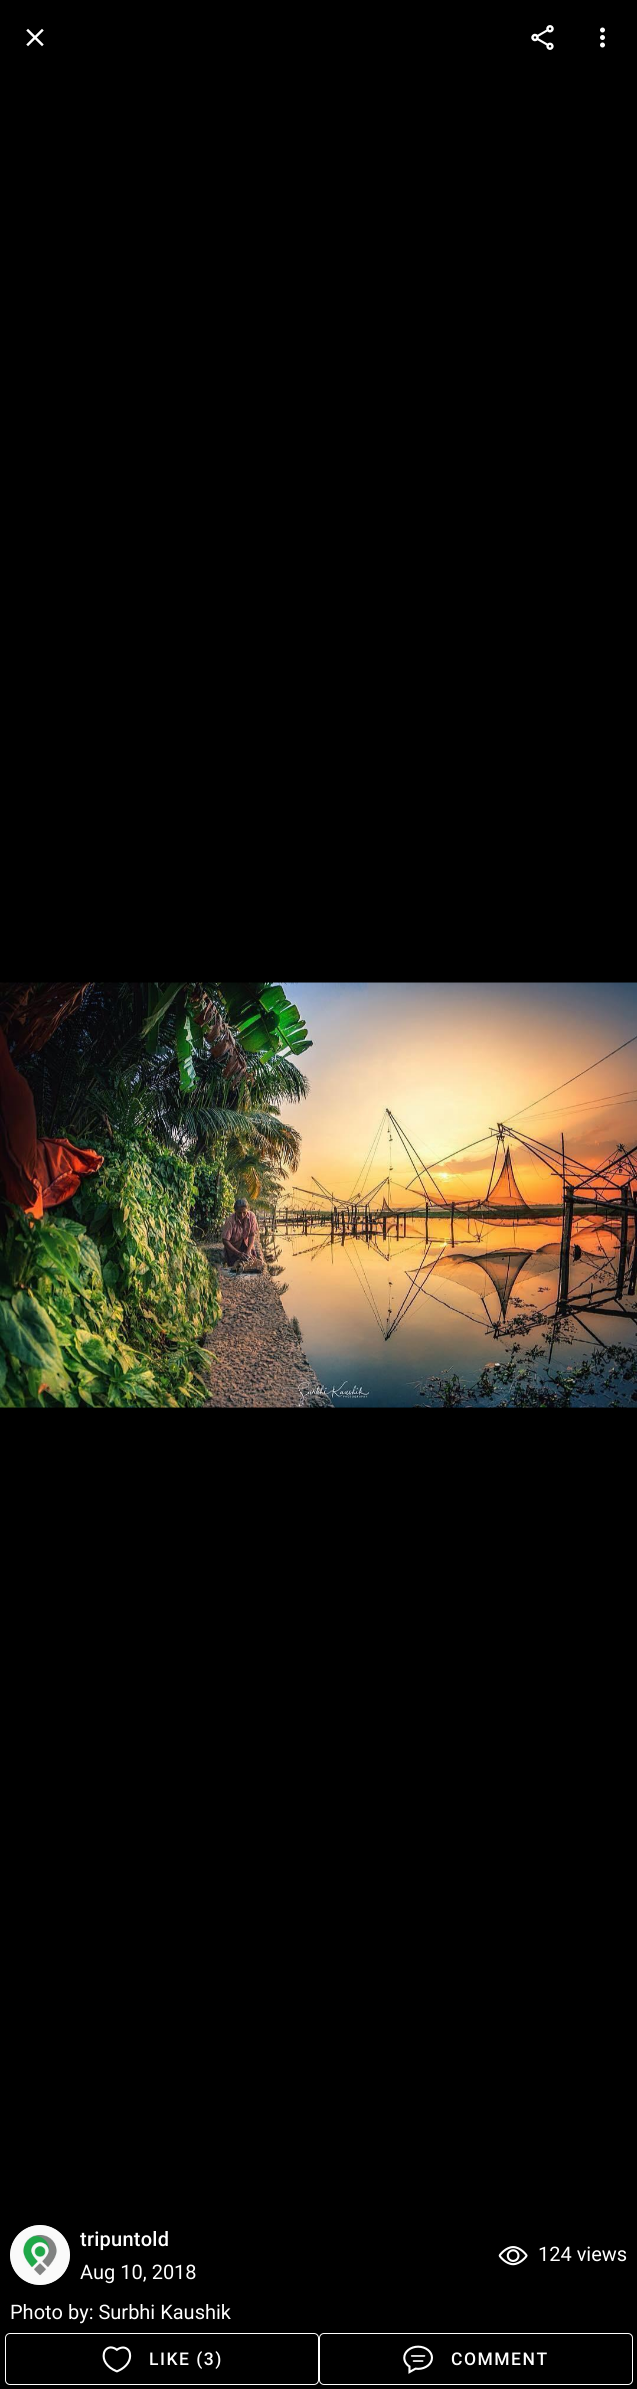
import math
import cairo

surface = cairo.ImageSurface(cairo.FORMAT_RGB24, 637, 2389)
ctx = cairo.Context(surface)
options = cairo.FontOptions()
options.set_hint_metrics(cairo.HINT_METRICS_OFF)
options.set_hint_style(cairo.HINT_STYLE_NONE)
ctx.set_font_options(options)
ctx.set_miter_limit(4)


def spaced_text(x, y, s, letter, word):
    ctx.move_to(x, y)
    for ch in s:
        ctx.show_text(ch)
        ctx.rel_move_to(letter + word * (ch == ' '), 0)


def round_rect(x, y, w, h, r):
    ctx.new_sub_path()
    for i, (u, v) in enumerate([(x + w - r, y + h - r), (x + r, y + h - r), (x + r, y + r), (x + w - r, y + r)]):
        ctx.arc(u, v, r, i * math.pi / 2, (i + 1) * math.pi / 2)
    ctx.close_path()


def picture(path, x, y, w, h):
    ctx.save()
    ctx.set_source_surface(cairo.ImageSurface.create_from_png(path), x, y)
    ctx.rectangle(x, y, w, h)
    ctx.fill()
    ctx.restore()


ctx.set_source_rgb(0, 0, 0)
ctx.paint()
picture("img1.png", 26, 28, 18, 19)
picture("img2.png", 531, 25, 23, 25)
picture("img3.png", 600, 27, 5, 21)
picture("img4.png", 0, 982, 637, 426)
ctx.set_source_rgb(0.89, 0.89, 0.89)
ctx.arc(40, 2255, 30, 0, 2 * math.pi)
ctx.fill()
picture("img5.png", 10, 2225, 60, 60)
ctx.select_font_face("Roboto Medium")
ctx.set_font_size(20)
ctx.set_source_rgb(1, 1, 1)
spaced_text(80, 2246, "tripuntold", 0.25, 0)
ctx.select_font_face("Roboto")
ctx.move_to(80, 2279)
ctx.show_text("Aug 10, 2018")
picture("img6.png", 498, 2246, 30, 20)
ctx.move_to(538, 2261)
ctx.show_text("124 views")
ctx.move_to(10, 2319)
ctx.show_text("Photo by: Surbhi Kaushik")
round_rect(5.5, 2333.5, 313, 51, 4.5)
ctx.set_line_width(1)
ctx.stroke()
picture("img7.png", 102, 2346, 30, 27)
ctx.select_font_face("Roboto Medium")
ctx.set_font_size(17.5)
spaced_text(149, 2365, "LIKE (3)", 1.5, 0)
round_rect(319.5, 2333.5, 313, 51, 4.5)
ctx.stroke()
picture("img8.png", 403, 2345, 30, 29)
spaced_text(451, 2365, "COMMENT", 1.5, 0)
surface.write_to_png("page.png")
